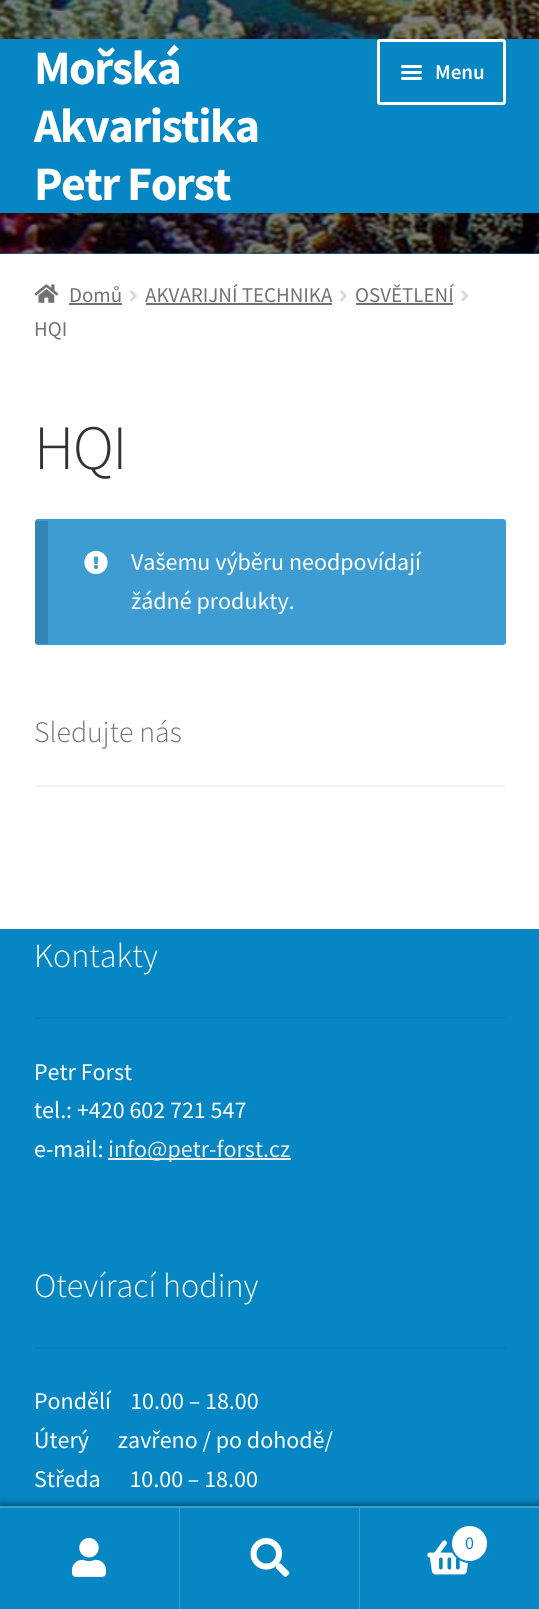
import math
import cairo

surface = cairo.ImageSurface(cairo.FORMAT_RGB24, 539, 1609)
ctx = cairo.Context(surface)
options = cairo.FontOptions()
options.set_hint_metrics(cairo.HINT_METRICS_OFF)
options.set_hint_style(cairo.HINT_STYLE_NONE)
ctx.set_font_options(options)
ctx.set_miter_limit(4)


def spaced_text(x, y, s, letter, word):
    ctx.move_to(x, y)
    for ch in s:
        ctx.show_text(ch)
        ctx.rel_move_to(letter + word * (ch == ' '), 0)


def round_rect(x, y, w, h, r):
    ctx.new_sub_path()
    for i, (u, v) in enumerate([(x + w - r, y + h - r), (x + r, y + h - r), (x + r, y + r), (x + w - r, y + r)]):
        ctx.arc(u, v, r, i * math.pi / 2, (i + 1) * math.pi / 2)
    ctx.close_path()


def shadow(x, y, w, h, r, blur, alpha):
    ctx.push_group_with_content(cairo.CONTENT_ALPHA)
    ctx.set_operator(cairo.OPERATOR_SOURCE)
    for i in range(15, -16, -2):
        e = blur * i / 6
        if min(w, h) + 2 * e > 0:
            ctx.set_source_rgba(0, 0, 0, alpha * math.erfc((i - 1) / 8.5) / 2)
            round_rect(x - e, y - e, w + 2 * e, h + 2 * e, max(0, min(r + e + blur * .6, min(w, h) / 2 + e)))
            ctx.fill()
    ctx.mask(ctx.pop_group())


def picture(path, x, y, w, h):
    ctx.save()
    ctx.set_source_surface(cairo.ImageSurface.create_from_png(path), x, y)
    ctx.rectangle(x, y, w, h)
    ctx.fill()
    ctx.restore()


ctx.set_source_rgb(1, 1, 1)
ctx.paint()
ctx.set_source_rgb(0.027, 0.529, 0.769)
ctx.rectangle(0, 253, 539, 1)
ctx.fill()
picture("img1.png", 0, 0, 539, 254)
ctx.rectangle(0, 39, 539, 174)
ctx.fill()
ctx.select_font_face("Source Sans Pro", cairo.FONT_SLANT_NORMAL, cairo.FONT_WEIGHT_BOLD)
ctx.set_font_size(48)
ctx.set_source_rgb(1, 1, 1)
spaced_text(34, 84, "Mořská", -1.5, 0)
spaced_text(34, 142, "Akvaristika", -1.5, 0)
spaced_text(34, 200, "Petr Forst", -1.5, 0)
round_rect(378.5, 40.5, 126, 63, 1.5)
ctx.set_line_width(3)
ctx.stroke()
round_rect(401, 65, 21, 3, 1.5)
ctx.fill()
round_rect(401, 71, 21, 3, 1.5)
ctx.fill()
ctx.select_font_face("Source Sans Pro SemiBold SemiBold")
ctx.set_font_size(21)
ctx.move_to(435, 79)
ctx.show_text("Menu")
round_rect(401, 77, 21, 3, 1.5)
ctx.fill()
picture("img2.png", 34, 284, 25, 19)
ctx.select_font_face("Source Sans Pro")
ctx.set_source_rgb(0.447, 0.447, 0.447)
ctx.move_to(69, 302)
ctx.show_text("Domů")
ctx.rectangle(69, 303, 53, 2)
ctx.fill()
picture("img3.png", 129, 290, 8, 12)
ctx.move_to(145, 302)
ctx.show_text("AKVARIJNÍ TECHNIKA")
ctx.rectangle(146, 303, 186, 2)
ctx.fill()
picture("img3.png", 339, 290, 8, 12)
ctx.move_to(355, 302)
ctx.show_text("OSVĚTLENÍ")
ctx.rectangle(356, 303, 97, 2)
ctx.fill()
picture("img4.png", 461, 290, 8, 12)
ctx.move_to(34, 336)
ctx.show_text("HQI")
ctx.select_font_face("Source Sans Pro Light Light")
ctx.set_font_size(63)
ctx.set_source_rgb(0.2, 0.2, 0.2)
spaced_text(34, 469, "HQI", -1.5, 0)
ctx.set_source_rgb(0.239, 0.612, 0.824)
round_rect(35, 519, 471, 126, 3)
ctx.fill()
ctx.set_source_rgba(0, 0, 0, 0.15)
ctx.rectangle(35, 521, 13, 123)
ctx.fill()
picture("img5.png", 84, 550, 24, 25)
ctx.select_font_face("Source Sans Pro")
ctx.set_font_size(24)
ctx.set_source_rgb(1, 1, 1)
ctx.move_to(131, 570)
ctx.show_text("Vašemu výběru neodpovídají")
ctx.move_to(131, 609)
ctx.show_text("žádné produkty.")
ctx.set_source_rgb(0.949, 0.949, 0.949)
ctx.rectangle(35, 785, 471, 2)
ctx.fill()
ctx.select_font_face("Source Sans Pro Light Light")
ctx.set_font_size(29.75)
ctx.set_source_rgb(0.447, 0.447, 0.447)
ctx.move_to(34, 742)
ctx.show_text("Sledujte nás")
ctx.set_source_rgb(0.027, 0.529, 0.769)
ctx.rectangle(0, 929, 539, 577)
ctx.fill()
ctx.set_source_rgb(0.027, 0.502, 0.729)
ctx.rectangle(35, 1017, 471, 2)
ctx.fill()
ctx.set_font_size(34)
ctx.set_source_rgb(1, 1, 1)
ctx.move_to(34, 967)
ctx.show_text("Kontakty")
ctx.select_font_face("Source Sans Pro")
ctx.set_font_size(24)
ctx.move_to(34, 1080)
ctx.show_text("Petr Forst")
ctx.move_to(34, 1118)
ctx.show_text("tel.: +420 602 721 547")
ctx.move_to(34, 1157)
ctx.show_text("e-mail:")
ctx.set_source_rgb(0.929, 0.929, 0.929)
ctx.rectangle(108, 1158, 183, 2)
ctx.fill()
ctx.move_to(108, 1157)
ctx.show_text("info@petr-forst.cz")
ctx.set_source_rgb(0.027, 0.502, 0.729)
ctx.rectangle(35, 1347, 471, 2)
ctx.fill()
ctx.select_font_face("Source Sans Pro Light Light")
ctx.set_font_size(34)
ctx.set_source_rgb(1, 1, 1)
ctx.move_to(34, 1297)
ctx.show_text("Otevírací hodiny")
ctx.select_font_face("Source Sans Pro")
ctx.set_font_size(24)
ctx.move_to(34, 1409)
ctx.show_text("Pondělí    10.00 – 18.00")
ctx.move_to(34, 1448)
ctx.show_text("Úterý      zavřeno / po dohodě/")
ctx.move_to(34, 1487)
ctx.show_text("Středa      10.00 – 18.00")
ctx.set_source_rgb(0, 0, 0)
shadow(0, 1506, 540, 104, 0, 4.5, 0.7)
ctx.set_source_rgb(0.224, 0.624, 0.816)
ctx.rectangle(0, 1506, 539, 2)
ctx.fill()
ctx.set_source_rgb(0.027, 0.529, 0.769)
ctx.rectangle(0, 1508, 359, 101)
ctx.fill()
ctx.set_source_rgba(1, 1, 1, 0.2)
ctx.rectangle(179, 1508, 1, 101)
ctx.fill()
picture("img6.png", 72, 1538, 34, 39)
ctx.set_source_rgb(0.224, 0.624, 0.816)
ctx.rectangle(359, 1508, 1, 101)
ctx.fill()
picture("img7.png", 250, 1538, 40, 39)
ctx.set_source_rgb(0.027, 0.529, 0.769)
ctx.rectangle(360, 1508, 179, 101)
ctx.fill()
picture("img8.png", 427, 1540, 42, 35)
ctx.set_source_rgb(1, 1, 1)
ctx.arc(469.5, 1543.5, 18.5, 0, 2 * math.pi)
ctx.fill_preserve()
ctx.set_source_rgb(0.027, 0.529, 0.769)
ctx.set_line_width(2)
ctx.stroke()
ctx.set_font_size(18)
ctx.move_to(465, 1549)
ctx.show_text("0")
surface.write_to_png("page.png")
